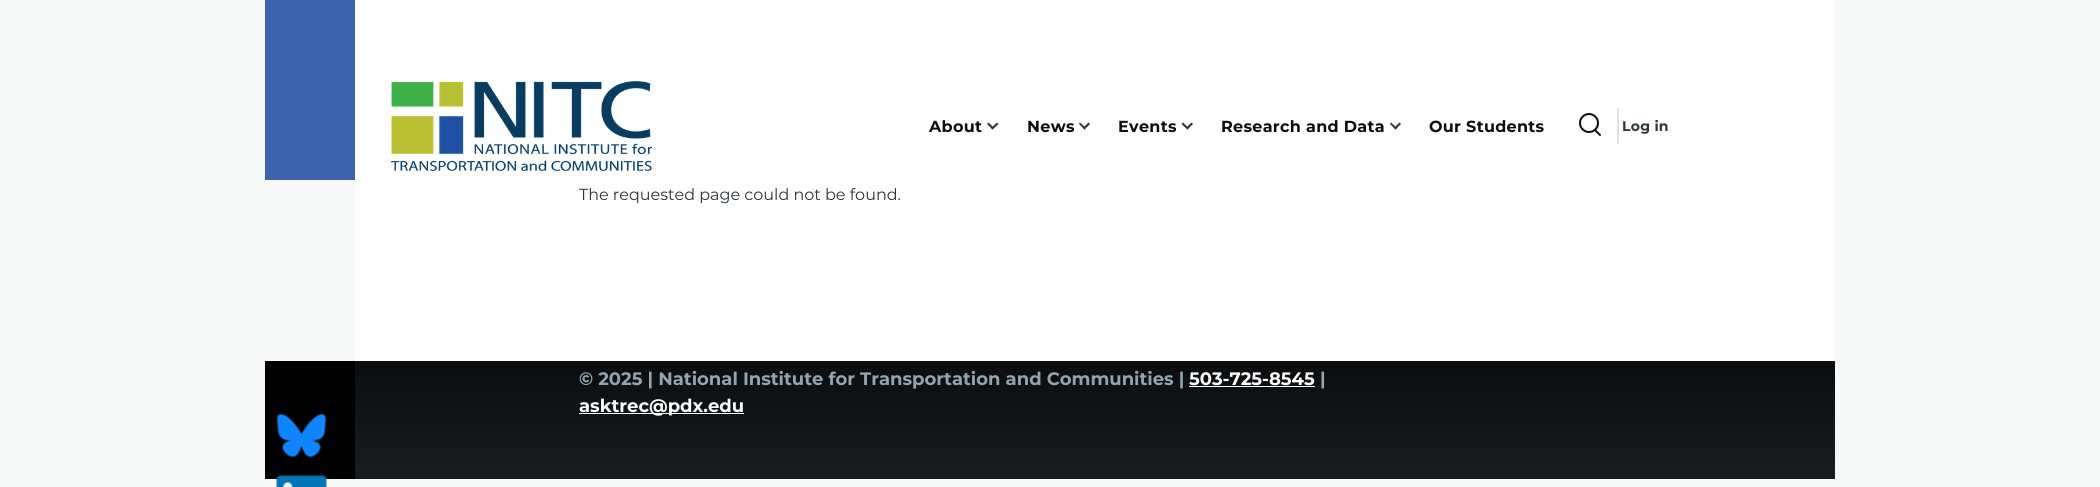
import math
import cairo

surface = cairo.ImageSurface(cairo.FORMAT_RGB24, 2100, 487)
ctx = cairo.Context(surface)
options = cairo.FontOptions()
options.set_hint_metrics(cairo.HINT_METRICS_OFF)
options.set_hint_style(cairo.HINT_STYLE_NONE)
ctx.set_font_options(options)
ctx.set_miter_limit(4)


def spaced_text(x, y, s, letter, word):
    ctx.move_to(x, y)
    for ch in s:
        ctx.show_text(ch)
        ctx.rel_move_to(letter + word * (ch == ' '), 0)


def picture(path, x, y, w, h):
    ctx.save()
    ctx.set_source_surface(cairo.ImageSurface.create_from_png(path), x, y)
    ctx.rectangle(x, y, w, h)
    ctx.fill()
    ctx.restore()


ctx.set_source_rgb(0.965, 0.973, 0.973)
ctx.paint()
ctx.set_source_rgb(1, 1, 1)
ctx.rectangle(265, 0, 1570, 361)
ctx.fill()
ctx.set_source_rgb(0.239, 0.388, 0.682)
ctx.rectangle(265, 0, 90, 180)
ctx.fill()
picture("img1.png", 391, 81, 261, 90)
ctx.select_font_face("Montserrat", cairo.FONT_SLANT_NORMAL, cairo.FONT_WEIGHT_BOLD)
ctx.set_font_size(16)
ctx.set_source_rgb(0.043, 0.051, 0.059)
spaced_text(929, 132, "About", 0.3, 0)
ctx.set_source_rgb(0.2, 0.2, 0.2)
ctx.new_path()
ctx.move_to(997, 122.5)
ctx.line_to(998.5, 124)
ctx.line_to(992.5, 129.5)
ctx.line_to(991, 128)
ctx.close_path()
ctx.fill()
ctx.new_path()
ctx.move_to(988.5, 122.5)
ctx.line_to(994, 128)
ctx.line_to(992.5, 129.5)
ctx.line_to(987, 124)
ctx.close_path()
ctx.fill()
ctx.set_source_rgb(0.043, 0.051, 0.059)
spaced_text(1027, 132, "News", 0.3, 0)
ctx.set_source_rgb(0.2, 0.2, 0.2)
ctx.new_path()
ctx.move_to(1088.5, 122.5)
ctx.line_to(1090, 124)
ctx.line_to(1084.5, 129.5)
ctx.line_to(1083, 128)
ctx.close_path()
ctx.fill()
ctx.new_path()
ctx.move_to(1080, 122.5)
ctx.line_to(1086, 128)
ctx.line_to(1084.5, 129.5)
ctx.line_to(1079, 124)
ctx.close_path()
ctx.fill()
ctx.set_source_rgb(0.043, 0.051, 0.059)
spaced_text(1118, 132, "Events", 0.3, 0)
ctx.set_source_rgb(0.2, 0.2, 0.2)
ctx.new_path()
ctx.move_to(1191.5, 122.5)
ctx.line_to(1193, 124)
ctx.line_to(1187.5, 129.5)
ctx.line_to(1186, 128)
ctx.close_path()
ctx.fill()
ctx.new_path()
ctx.move_to(1183, 122.5)
ctx.line_to(1188.5, 128)
ctx.line_to(1187.5, 129.5)
ctx.line_to(1181.5, 124)
ctx.close_path()
ctx.fill()
ctx.set_source_rgb(0.043, 0.051, 0.059)
spaced_text(1221, 132, "Research and Data", 0.3, 0)
ctx.set_source_rgb(0.2, 0.2, 0.2)
ctx.new_path()
ctx.move_to(1399.5, 122.5)
ctx.line_to(1401, 124)
ctx.line_to(1395.5, 129.5)
ctx.line_to(1394, 128)
ctx.close_path()
ctx.fill()
ctx.new_path()
ctx.move_to(1391, 122.5)
ctx.line_to(1397, 128)
ctx.line_to(1395.5, 129.5)
ctx.line_to(1390, 124)
ctx.close_path()
ctx.fill()
ctx.set_source_rgb(0.043, 0.051, 0.059)
spaced_text(1429, 132, "Our Students", 0.3, 0)
picture("img2.png", 1579, 113, 22, 23)
ctx.set_source_rgb(0.863, 0.886, 0.898)
ctx.rectangle(1617, 108, 2, 36)
ctx.fill()
ctx.set_font_size(14)
ctx.set_source_rgb(0.169, 0.208, 0.231)
spaced_text(1622, 131, "Log in", 0.25, 0)
ctx.set_source_rgb(0.965, 0.973, 0.973)
ctx.rectangle(265, 181, 90, 180)
ctx.fill()
ctx.set_source_rgb(0, 0, 0)
ctx.rectangle(265, 361, 90, 118)
ctx.fill()
picture("img3.png", 276, 413, 51, 45)
picture("img4.png", 276, 475, 51, 12)
ctx.select_font_face("Montserrat")
ctx.set_font_size(16)
ctx.set_source_rgb(0.169, 0.208, 0.231)
ctx.move_to(579, 200)
ctx.show_text("The requested page could not be found.")
gradient = cairo.LinearGradient(1095, 361, 1095, 479)
gradient.add_color_stop_rgba(0, 0.043, 0.051, 0.059, 1)
gradient.add_color_stop_rgba(1, 0.094, 0.114, 0.125, 1)
ctx.set_source(gradient)
ctx.rectangle(355, 361, 1480, 118)
ctx.fill()
ctx.select_font_face("Montserrat", cairo.FONT_SLANT_NORMAL, cairo.FONT_WEIGHT_BOLD)
ctx.set_font_size(18)
ctx.set_source_rgb(0.573, 0.647, 0.686)
ctx.move_to(579, 385)
ctx.show_text("© 2025 | National Institute for Transportation and Communities |")
ctx.set_source_rgb(1, 1, 1)
ctx.move_to(1189, 385)
ctx.show_text("503-725-8545")
ctx.rectangle(1189, 386, 126, 1)
ctx.fill()
ctx.set_source_rgb(0.573, 0.647, 0.686)
ctx.move_to(1320, 385)
ctx.show_text("|")
ctx.set_source_rgb(1, 1, 1)
ctx.rectangle(579, 413, 165, 1)
ctx.fill()
ctx.move_to(579, 412)
ctx.show_text("asktrec@pdx.edu")
surface.write_to_png("page.png")
